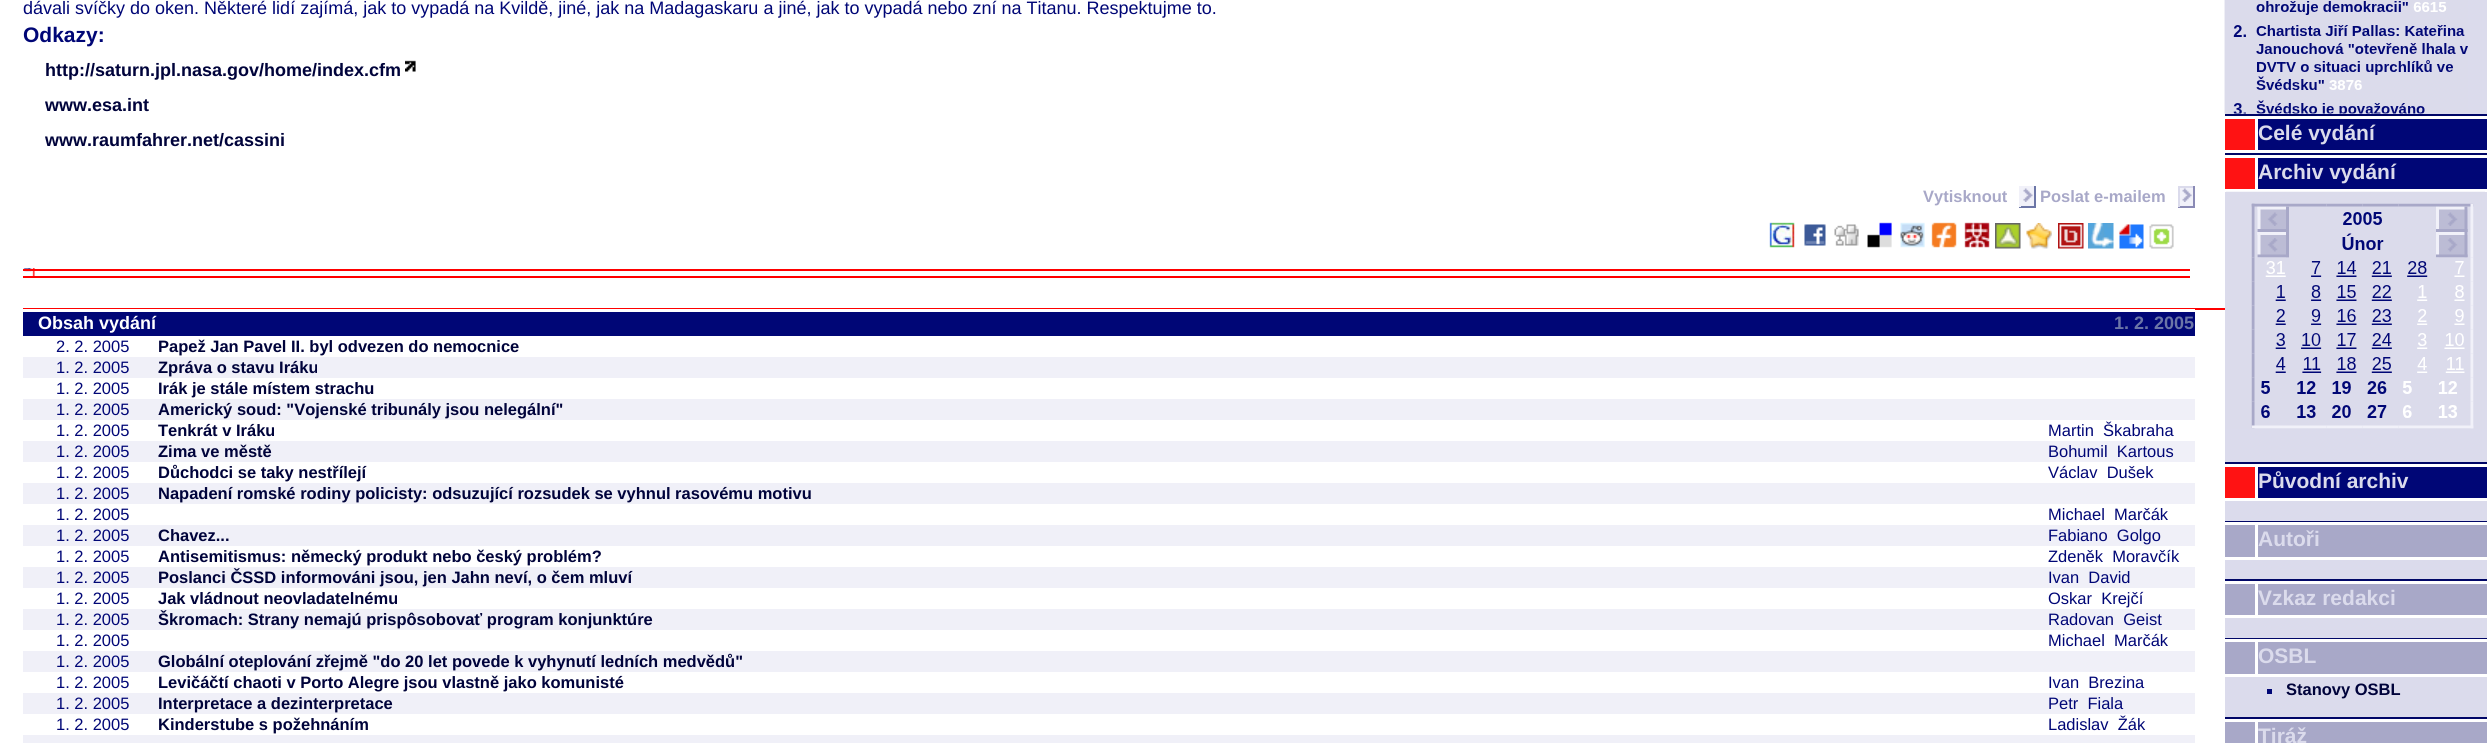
import math
import cairo

surface = cairo.ImageSurface(cairo.FORMAT_RGB24, 2487, 743)
ctx = cairo.Context(surface)
options = cairo.FontOptions()
options.set_hint_metrics(cairo.HINT_METRICS_OFF)
options.set_hint_style(cairo.HINT_STYLE_NONE)
ctx.set_font_options(options)
ctx.set_miter_limit(4)


def picture(path, x, y, w, h):
    ctx.save()
    ctx.set_source_surface(cairo.ImageSurface.create_from_png(path), x, y)
    ctx.rectangle(x, y, w, h)
    ctx.fill()
    ctx.restore()


ctx.set_source_rgb(1, 1, 1)
ctx.paint()
ctx.select_font_face("Liberation Sans")
ctx.set_font_size(18)
ctx.set_source_rgb(0, 0.027, 0.463)
ctx.move_to(23, 14)
ctx.show_text("dávali svíčky do oken. Některé lidí zajímá, jak to vypadá na Kvildě, jiné, jak na Madagaskaru a jiné, jak to vypadá nebo zní na Titanu. Respektujme to.")
ctx.select_font_face("Liberation Sans", cairo.FONT_SLANT_NORMAL, cairo.FONT_WEIGHT_BOLD)
ctx.set_font_size(21)
ctx.move_to(23, 42)
ctx.show_text("Odkazy:")
ctx.set_font_size(18)
ctx.set_source_rgb(0, 0.012, 0.231)
ctx.move_to(45, 76)
ctx.show_text("http://saturn.jpl.nasa.gov/home/index.cfm")
picture("img1.png", 405, 60, 11, 12)
ctx.move_to(45, 111)
ctx.show_text("www.esa.int")
ctx.move_to(45, 146)
ctx.show_text("www.raumfahrer.net/cassini")
ctx.set_font_size(16.5)
ctx.set_source_rgb(0.659, 0.659, 0.784)
ctx.move_to(1923, 202)
ctx.show_text("Vytisknout")
ctx.set_source_rgb(0.945, 0.945, 0.976)
ctx.rectangle(2021, 186, 13, 20)
ctx.fill()
ctx.set_source_rgb(0.424, 0.463, 0.655)
ctx.rectangle(2034, 186, 2, 21)
ctx.fill()
ctx.rectangle(2019, 206, 17, 2)
ctx.fill()
ctx.set_source_rgb(0.945, 0.945, 0.976)
ctx.rectangle(2019, 186, 2, 21)
ctx.fill()
picture("img2.png", 2023, 188, 10, 14)
ctx.set_source_rgb(0.659, 0.659, 0.784)
ctx.move_to(2040, 202)
ctx.show_text("Poslat e-mailem")
ctx.set_source_rgb(0.945, 0.945, 0.976)
ctx.rectangle(2180, 188, 13, 18)
ctx.fill()
ctx.set_source_rgb(0.859, 0.859, 0.922)
ctx.rectangle(2178, 186, 17, 2)
ctx.fill()
ctx.set_source_rgb(0.541, 0.541, 0.71)
ctx.rectangle(2193, 186, 2, 21)
ctx.fill()
ctx.rectangle(2178, 206, 17, 2)
ctx.fill()
ctx.set_source_rgb(0.859, 0.859, 0.922)
ctx.rectangle(2178, 186, 2, 21)
ctx.fill()
picture("img3.png", 2182, 188, 10, 14)
picture("img4.png", 1769, 222, 26, 26)
picture("img5.png", 1804, 224, 22, 22)
picture("img6.png", 1834, 224, 25, 22)
picture("img7.png", 1867, 222, 25, 26)
picture("img8.png", 1900, 222, 25, 26)
picture("img9.png", 1931, 222, 26, 26)
picture("img10.png", 1964, 222, 26, 26)
picture("img11.png", 1995, 223, 26, 26)
picture("img12.png", 2026, 223, 26, 26)
picture("img13.png", 2058, 223, 26, 26)
picture("img14.png", 2088, 223, 26, 26)
picture("img15.png", 2119, 224, 25, 25)
picture("img16.png", 2149, 224, 25, 25)
picture("img17.png", 23, 268, 12, 8)
ctx.set_source_rgb(1, 0, 0)
ctx.rectangle(23, 269, 2167, 2)
ctx.fill()
ctx.rectangle(23, 276, 2167, 2)
ctx.fill()
ctx.rectangle(23, 308, 2202, 2)
ctx.fill()
ctx.set_source_rgb(1, 1, 1)
ctx.rectangle(23, 309, 2172, 1)
ctx.fill()
ctx.set_source_rgb(0, 0.027, 0.463)
ctx.rectangle(23, 312, 2172, 24)
ctx.fill()
ctx.set_font_size(18)
ctx.set_source_rgb(1, 1, 1)
ctx.move_to(38, 329)
ctx.show_text("Obsah vydání")
ctx.set_source_rgb(0.424, 0.463, 0.655)
ctx.move_to(2114, 329)
ctx.show_text("1. 2. 2005")
ctx.select_font_face("Liberation Sans")
ctx.set_font_size(16.5)
ctx.set_source_rgb(0, 0.027, 0.463)
ctx.move_to(56, 352)
ctx.show_text("2. 2. 2005")
ctx.select_font_face("Liberation Sans", cairo.FONT_SLANT_NORMAL, cairo.FONT_WEIGHT_BOLD)
ctx.set_source_rgb(0, 0.012, 0.231)
ctx.move_to(158, 352)
ctx.show_text("Papež Jan Pavel II. byl odvezen do nemocnice")
ctx.set_source_rgb(0.941, 0.941, 0.969)
ctx.rectangle(23, 357, 2172, 21)
ctx.fill()
ctx.select_font_face("Liberation Sans")
ctx.set_source_rgb(0, 0.027, 0.463)
ctx.move_to(56, 373)
ctx.show_text("1. 2. 2005")
ctx.select_font_face("Liberation Sans", cairo.FONT_SLANT_NORMAL, cairo.FONT_WEIGHT_BOLD)
ctx.set_source_rgb(0, 0.012, 0.231)
ctx.move_to(158, 373)
ctx.show_text("Zpráva o stavu Iráku")
ctx.select_font_face("Liberation Sans")
ctx.set_source_rgb(0, 0.027, 0.463)
ctx.move_to(56, 394)
ctx.show_text("1. 2. 2005")
ctx.select_font_face("Liberation Sans", cairo.FONT_SLANT_NORMAL, cairo.FONT_WEIGHT_BOLD)
ctx.set_source_rgb(0, 0.012, 0.231)
ctx.move_to(158, 394)
ctx.show_text("Irák je stále místem strachu")
ctx.set_source_rgb(0.941, 0.941, 0.969)
ctx.rectangle(23, 399, 2172, 21)
ctx.fill()
ctx.select_font_face("Liberation Sans")
ctx.set_source_rgb(0, 0.027, 0.463)
ctx.move_to(56, 415)
ctx.show_text("1. 2. 2005")
ctx.select_font_face("Liberation Sans", cairo.FONT_SLANT_NORMAL, cairo.FONT_WEIGHT_BOLD)
ctx.set_source_rgb(0, 0.012, 0.231)
ctx.move_to(158, 415)
ctx.show_text("Americký soud: \"Vojenské tribunály jsou nelegální\"")
ctx.select_font_face("Liberation Sans")
ctx.set_source_rgb(0, 0.027, 0.463)
ctx.move_to(56, 436)
ctx.show_text("1. 2. 2005")
ctx.select_font_face("Liberation Sans", cairo.FONT_SLANT_NORMAL, cairo.FONT_WEIGHT_BOLD)
ctx.set_source_rgb(0, 0.012, 0.231)
ctx.move_to(158, 436)
ctx.show_text("Tenkrát v Iráku")
ctx.select_font_face("Liberation Sans")
ctx.set_source_rgb(0, 0.027, 0.463)
ctx.move_to(2048, 436)
ctx.show_text("Martin  Škabraha")
ctx.set_source_rgb(0.941, 0.941, 0.969)
ctx.rectangle(23, 441, 2172, 21)
ctx.fill()
ctx.set_source_rgb(0, 0.027, 0.463)
ctx.move_to(56, 457)
ctx.show_text("1. 2. 2005")
ctx.select_font_face("Liberation Sans", cairo.FONT_SLANT_NORMAL, cairo.FONT_WEIGHT_BOLD)
ctx.set_source_rgb(0, 0.012, 0.231)
ctx.move_to(158, 457)
ctx.show_text("Zima ve městě")
ctx.select_font_face("Liberation Sans")
ctx.set_source_rgb(0, 0.027, 0.463)
ctx.move_to(2048, 457)
ctx.show_text("Bohumil  Kartous")
ctx.move_to(56, 478)
ctx.show_text("1. 2. 2005")
ctx.select_font_face("Liberation Sans", cairo.FONT_SLANT_NORMAL, cairo.FONT_WEIGHT_BOLD)
ctx.set_source_rgb(0, 0.012, 0.231)
ctx.move_to(158, 478)
ctx.show_text("Důchodci se taky nestřílejí")
ctx.select_font_face("Liberation Sans")
ctx.set_source_rgb(0, 0.027, 0.463)
ctx.move_to(2048, 478)
ctx.show_text("Václav  Dušek")
ctx.set_source_rgb(0.941, 0.941, 0.969)
ctx.rectangle(23, 483, 2172, 21)
ctx.fill()
ctx.set_source_rgb(0, 0.027, 0.463)
ctx.move_to(56, 499)
ctx.show_text("1. 2. 2005")
ctx.select_font_face("Liberation Sans", cairo.FONT_SLANT_NORMAL, cairo.FONT_WEIGHT_BOLD)
ctx.set_source_rgb(0, 0.012, 0.231)
ctx.move_to(158, 499)
ctx.show_text("Napadení romské rodiny policisty: odsuzující rozsudek se vyhnul rasovému motivu")
ctx.select_font_face("Liberation Sans")
ctx.set_source_rgb(0, 0.027, 0.463)
ctx.move_to(56, 520)
ctx.show_text("1. 2. 2005")
ctx.move_to(2048, 520)
ctx.show_text("Michael  Marčák")
ctx.set_source_rgb(0.941, 0.941, 0.969)
ctx.rectangle(23, 525, 2172, 21)
ctx.fill()
ctx.set_source_rgb(0, 0.027, 0.463)
ctx.move_to(56, 541)
ctx.show_text("1. 2. 2005")
ctx.select_font_face("Liberation Sans", cairo.FONT_SLANT_NORMAL, cairo.FONT_WEIGHT_BOLD)
ctx.set_source_rgb(0, 0.012, 0.231)
ctx.move_to(158, 541)
ctx.show_text("Chavez...")
ctx.select_font_face("Liberation Sans")
ctx.set_source_rgb(0, 0.027, 0.463)
ctx.move_to(2048, 541)
ctx.show_text("Fabiano  Golgo")
ctx.move_to(56, 562)
ctx.show_text("1. 2. 2005")
ctx.select_font_face("Liberation Sans", cairo.FONT_SLANT_NORMAL, cairo.FONT_WEIGHT_BOLD)
ctx.set_source_rgb(0, 0.012, 0.231)
ctx.move_to(158, 562)
ctx.show_text("Antisemitismus: německý produkt nebo český problém?")
ctx.select_font_face("Liberation Sans")
ctx.set_source_rgb(0, 0.027, 0.463)
ctx.move_to(2048, 562)
ctx.show_text("Zdeněk  Moravčík")
ctx.set_source_rgb(0.941, 0.941, 0.969)
ctx.rectangle(23, 567, 2172, 21)
ctx.fill()
ctx.set_source_rgb(0, 0.027, 0.463)
ctx.move_to(56, 583)
ctx.show_text("1. 2. 2005")
ctx.select_font_face("Liberation Sans", cairo.FONT_SLANT_NORMAL, cairo.FONT_WEIGHT_BOLD)
ctx.set_source_rgb(0, 0.012, 0.231)
ctx.move_to(158, 583)
ctx.show_text("Poslanci ČSSD informováni jsou, jen Jahn neví, o čem mluví")
ctx.select_font_face("Liberation Sans")
ctx.set_source_rgb(0, 0.027, 0.463)
ctx.move_to(2048, 583)
ctx.show_text("Ivan  David")
ctx.move_to(56, 604)
ctx.show_text("1. 2. 2005")
ctx.select_font_face("Liberation Sans", cairo.FONT_SLANT_NORMAL, cairo.FONT_WEIGHT_BOLD)
ctx.set_source_rgb(0, 0.012, 0.231)
ctx.move_to(158, 604)
ctx.show_text("Jak vládnout neovladatelnému")
ctx.select_font_face("Liberation Sans")
ctx.set_source_rgb(0, 0.027, 0.463)
ctx.move_to(2048, 604)
ctx.show_text("Oskar  Krejčí")
ctx.set_source_rgb(0.941, 0.941, 0.969)
ctx.rectangle(23, 609, 2172, 21)
ctx.fill()
ctx.set_source_rgb(0, 0.027, 0.463)
ctx.move_to(56, 625)
ctx.show_text("1. 2. 2005")
ctx.select_font_face("Liberation Sans", cairo.FONT_SLANT_NORMAL, cairo.FONT_WEIGHT_BOLD)
ctx.set_source_rgb(0, 0.012, 0.231)
ctx.move_to(158, 625)
ctx.show_text("Škromach: Strany nemajú prispôsobovať program konjunktúre")
ctx.select_font_face("Liberation Sans")
ctx.set_source_rgb(0, 0.027, 0.463)
ctx.move_to(2048, 625)
ctx.show_text("Radovan  Geist")
ctx.move_to(56, 646)
ctx.show_text("1. 2. 2005")
ctx.move_to(2048, 646)
ctx.show_text("Michael  Marčák")
ctx.set_source_rgb(0.941, 0.941, 0.969)
ctx.rectangle(23, 651, 2172, 21)
ctx.fill()
ctx.set_source_rgb(0, 0.027, 0.463)
ctx.move_to(56, 667)
ctx.show_text("1. 2. 2005")
ctx.select_font_face("Liberation Sans", cairo.FONT_SLANT_NORMAL, cairo.FONT_WEIGHT_BOLD)
ctx.set_source_rgb(0, 0.012, 0.231)
ctx.move_to(158, 667)
ctx.show_text("Globální oteplování zřejmě \"do 20 let povede k vyhynutí ledních medvědů\"")
ctx.select_font_face("Liberation Sans")
ctx.set_source_rgb(0, 0.027, 0.463)
ctx.move_to(56, 688)
ctx.show_text("1. 2. 2005")
ctx.select_font_face("Liberation Sans", cairo.FONT_SLANT_NORMAL, cairo.FONT_WEIGHT_BOLD)
ctx.set_source_rgb(0, 0.012, 0.231)
ctx.move_to(158, 688)
ctx.show_text("Levičáčtí chaoti v Porto Alegre jsou vlastně jako komunisté")
ctx.select_font_face("Liberation Sans")
ctx.set_source_rgb(0, 0.027, 0.463)
ctx.move_to(2048, 688)
ctx.show_text("Ivan  Brezina")
ctx.set_source_rgb(0.941, 0.941, 0.969)
ctx.rectangle(23, 693, 2172, 21)
ctx.fill()
ctx.set_source_rgb(0, 0.027, 0.463)
ctx.move_to(56, 709)
ctx.show_text("1. 2. 2005")
ctx.select_font_face("Liberation Sans", cairo.FONT_SLANT_NORMAL, cairo.FONT_WEIGHT_BOLD)
ctx.set_source_rgb(0, 0.012, 0.231)
ctx.move_to(158, 709)
ctx.show_text("Interpretace a dezinterpretace")
ctx.select_font_face("Liberation Sans")
ctx.set_source_rgb(0, 0.027, 0.463)
ctx.move_to(2048, 709)
ctx.show_text("Petr  Fiala")
ctx.move_to(56, 730)
ctx.show_text("1. 2. 2005")
ctx.select_font_face("Liberation Sans", cairo.FONT_SLANT_NORMAL, cairo.FONT_WEIGHT_BOLD)
ctx.set_source_rgb(0, 0.012, 0.231)
ctx.move_to(158, 730)
ctx.show_text("Kinderstube s požehnáním")
ctx.select_font_face("Liberation Sans")
ctx.set_source_rgb(0, 0.027, 0.463)
ctx.move_to(2048, 730)
ctx.show_text("Ladislav  Žák")
ctx.set_source_rgb(0.941, 0.941, 0.969)
ctx.rectangle(23, 735, 2172, 8)
ctx.fill()
ctx.set_source_rgb(0.859, 0.859, 0.922)
ctx.rectangle(2225, 0, 262, 717)
ctx.fill()
picture("img18.png", 2224, 0, 244, 114)
ctx.set_source_rgb(0, 0.027, 0.463)
ctx.rectangle(2258, 119, 229, 31)
ctx.fill()
ctx.set_source_rgb(0, 0.024, 0.404)
ctx.rectangle(2225, 114, 262, 2)
ctx.fill()
ctx.set_source_rgb(1, 1, 1)
ctx.rectangle(2225, 150, 262, 3)
ctx.fill()
ctx.set_source_rgb(1, 0.071, 0.078)
ctx.rectangle(2225, 119, 30, 31)
ctx.fill()
ctx.set_source_rgb(1, 1, 1)
ctx.rectangle(2225, 116, 262, 3)
ctx.fill()
ctx.rectangle(2255, 116, 3, 34)
ctx.fill()
ctx.select_font_face("Liberation Sans", cairo.FONT_SLANT_NORMAL, cairo.FONT_WEIGHT_BOLD)
ctx.set_font_size(21)
ctx.set_source_rgb(0.859, 0.859, 0.922)
ctx.move_to(2258, 140)
ctx.show_text("Celé vydání")
ctx.set_source_rgb(0, 0.027, 0.463)
ctx.rectangle(2258, 158, 229, 31)
ctx.fill()
ctx.set_source_rgb(0, 0.024, 0.404)
ctx.rectangle(2225, 153, 262, 2)
ctx.fill()
ctx.set_source_rgb(1, 1, 1)
ctx.rectangle(2225, 189, 262, 3)
ctx.fill()
ctx.set_source_rgb(1, 0.071, 0.078)
ctx.rectangle(2225, 158, 30, 31)
ctx.fill()
ctx.set_source_rgb(1, 1, 1)
ctx.rectangle(2225, 155, 262, 3)
ctx.fill()
ctx.rectangle(2255, 155, 3, 34)
ctx.fill()
ctx.set_source_rgb(0.859, 0.859, 0.922)
ctx.move_to(2258, 179)
ctx.show_text("Archiv vydání")
picture("img19.png", 2226, 191, 259, 238)
ctx.set_source_rgb(0, 0.027, 0.463)
ctx.rectangle(2258, 467, 229, 31)
ctx.fill()
ctx.set_source_rgb(0, 0.024, 0.404)
ctx.rectangle(2225, 462, 262, 2)
ctx.fill()
ctx.set_source_rgb(1, 1, 1)
ctx.rectangle(2225, 498, 262, 3)
ctx.fill()
ctx.set_source_rgb(1, 0.071, 0.078)
ctx.rectangle(2225, 467, 30, 31)
ctx.fill()
ctx.set_source_rgb(1, 1, 1)
ctx.rectangle(2225, 464, 262, 3)
ctx.fill()
ctx.rectangle(2255, 464, 3, 34)
ctx.fill()
ctx.set_source_rgb(0.859, 0.859, 0.922)
ctx.move_to(2258, 488)
ctx.show_text("Původní archiv")
ctx.set_source_rgb(0.659, 0.659, 0.784)
ctx.rectangle(2258, 525, 229, 32)
ctx.fill()
ctx.set_source_rgb(0, 0.024, 0.404)
ctx.rectangle(2225, 521, 262, 1)
ctx.fill()
ctx.set_source_rgb(1, 1, 1)
ctx.rectangle(2225, 557, 262, 3)
ctx.fill()
ctx.set_source_rgb(0.659, 0.659, 0.784)
ctx.rectangle(2225, 525, 30, 32)
ctx.fill()
ctx.set_source_rgb(1, 1, 1)
ctx.rectangle(2225, 522, 262, 3)
ctx.fill()
ctx.rectangle(2255, 522, 3, 35)
ctx.fill()
ctx.set_source_rgb(0.859, 0.859, 0.922)
ctx.move_to(2258, 546)
ctx.show_text("Autoři")
ctx.set_source_rgb(0.659, 0.659, 0.784)
ctx.rectangle(2258, 584, 229, 31)
ctx.fill()
ctx.set_source_rgb(0, 0.024, 0.404)
ctx.rectangle(2225, 579, 262, 2)
ctx.fill()
ctx.set_source_rgb(1, 1, 1)
ctx.rectangle(2225, 615, 262, 3)
ctx.fill()
ctx.set_source_rgb(0.659, 0.659, 0.784)
ctx.rectangle(2225, 584, 30, 31)
ctx.fill()
ctx.set_source_rgb(1, 1, 1)
ctx.rectangle(2225, 581, 262, 3)
ctx.fill()
ctx.rectangle(2255, 581, 3, 34)
ctx.fill()
ctx.set_source_rgb(0.859, 0.859, 0.922)
ctx.move_to(2258, 605)
ctx.show_text("Vzkaz redakci")
ctx.set_source_rgb(0.659, 0.659, 0.784)
ctx.rectangle(2258, 642, 229, 32)
ctx.fill()
ctx.set_source_rgb(0, 0.024, 0.404)
ctx.rectangle(2225, 638, 262, 1)
ctx.fill()
ctx.set_source_rgb(1, 1, 1)
ctx.rectangle(2225, 674, 262, 3)
ctx.fill()
ctx.set_source_rgb(0.659, 0.659, 0.784)
ctx.rectangle(2225, 642, 30, 32)
ctx.fill()
ctx.set_source_rgb(1, 1, 1)
ctx.rectangle(2225, 639, 262, 3)
ctx.fill()
ctx.rectangle(2255, 639, 3, 35)
ctx.fill()
ctx.set_source_rgb(0.859, 0.859, 0.922)
ctx.move_to(2258, 663)
ctx.show_text("OSBL")
ctx.set_source_rgb(0, 0.027, 0.463)
ctx.rectangle(2267, 689, 5, 5)
ctx.fill()
ctx.set_font_size(16.5)
ctx.set_source_rgb(0, 0.012, 0.231)
ctx.move_to(2286, 695)
ctx.show_text("Stanovy OSBL")
ctx.set_source_rgb(0.659, 0.659, 0.784)
ctx.rectangle(2258, 722, 229, 21)
ctx.fill()
ctx.set_source_rgb(0, 0.024, 0.404)
ctx.rectangle(2225, 717, 262, 2)
ctx.fill()
ctx.set_source_rgb(0.659, 0.659, 0.784)
ctx.rectangle(2225, 722, 30, 21)
ctx.fill()
ctx.set_font_size(21)
ctx.set_source_rgb(0.859, 0.859, 0.922)
ctx.move_to(2258, 743)
ctx.show_text("Tiráž")
surface.write_to_png("page.png")
